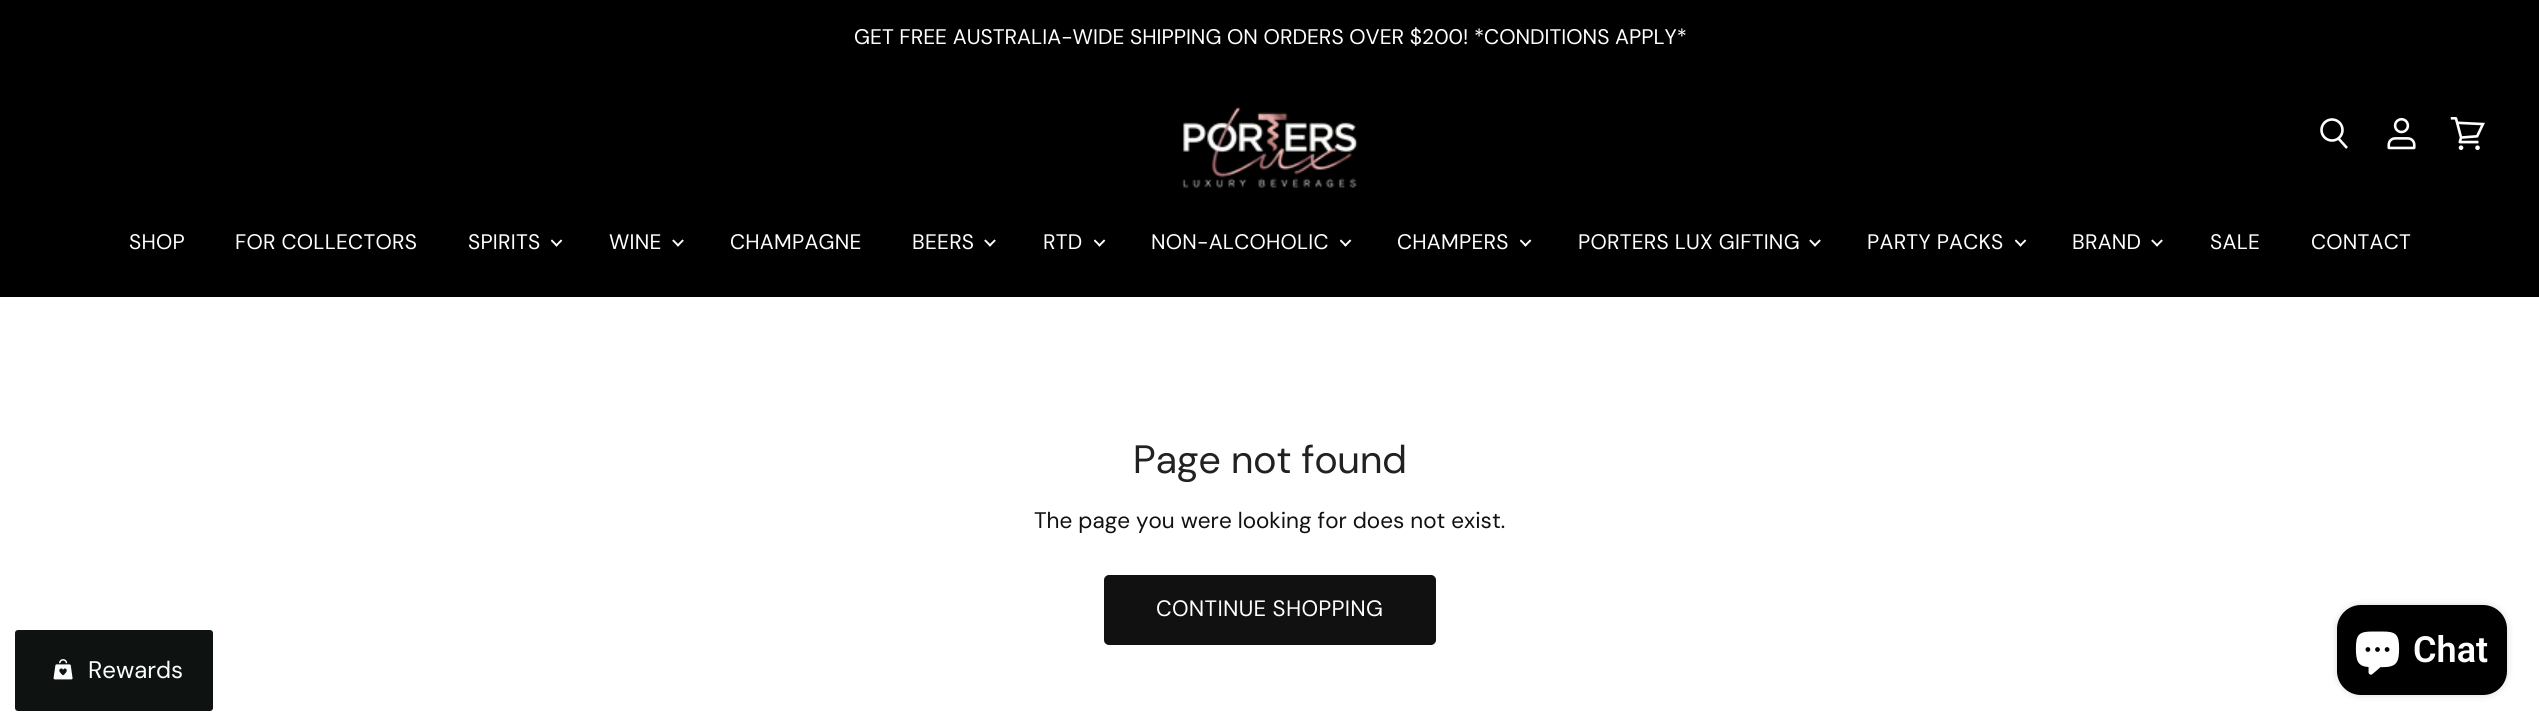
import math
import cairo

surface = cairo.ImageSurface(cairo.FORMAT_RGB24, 2539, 726)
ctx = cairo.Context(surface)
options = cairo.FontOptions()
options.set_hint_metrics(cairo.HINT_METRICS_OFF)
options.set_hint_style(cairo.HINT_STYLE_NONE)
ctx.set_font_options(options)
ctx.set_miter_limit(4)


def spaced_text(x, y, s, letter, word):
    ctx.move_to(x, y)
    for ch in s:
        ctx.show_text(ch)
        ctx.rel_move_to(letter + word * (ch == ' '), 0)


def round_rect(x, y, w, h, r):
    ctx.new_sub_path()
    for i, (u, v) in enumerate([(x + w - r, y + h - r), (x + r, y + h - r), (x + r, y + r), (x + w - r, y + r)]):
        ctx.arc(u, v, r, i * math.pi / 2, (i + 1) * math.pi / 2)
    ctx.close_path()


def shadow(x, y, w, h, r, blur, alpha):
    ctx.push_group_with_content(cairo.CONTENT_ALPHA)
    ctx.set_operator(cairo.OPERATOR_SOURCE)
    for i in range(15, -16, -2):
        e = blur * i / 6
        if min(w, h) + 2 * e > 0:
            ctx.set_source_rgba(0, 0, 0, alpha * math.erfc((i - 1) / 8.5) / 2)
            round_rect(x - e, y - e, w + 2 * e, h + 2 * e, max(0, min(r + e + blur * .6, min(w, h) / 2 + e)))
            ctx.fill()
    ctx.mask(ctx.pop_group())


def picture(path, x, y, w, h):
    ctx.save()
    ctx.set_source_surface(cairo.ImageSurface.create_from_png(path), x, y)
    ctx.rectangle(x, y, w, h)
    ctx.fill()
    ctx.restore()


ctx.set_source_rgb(1, 1, 1)
ctx.paint()
ctx.set_source_rgb(0, 0, 0)
ctx.rectangle(0, 0, 2539, 72)
ctx.fill()
ctx.select_font_face("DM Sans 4")
ctx.set_font_size(21.1)
ctx.set_source_rgb(1, 1, 1)
ctx.move_to(854, 44)
ctx.show_text("GET FREE AUSTRALIA-WIDE SHIPPING ON ORDERS OVER $200! *CONDITIONS APPLY*")
ctx.set_source_rgb(0.004, 0, 0)
ctx.rectangle(0, 72, 2539, 225)
ctx.fill()
picture("img1.png", 1182, 107, 176, 81)
ctx.new_path()
ctx.move_to(2347, 148)
ctx.line_to(2338, 138)
ctx.set_source_rgb(1, 1, 1)
ctx.set_line_width(2.6)
ctx.stroke()
ctx.arc(2332, 130, 10.5, 0, 2 * math.pi)
ctx.stroke()
picture("img2.png", 2387, 117, 29, 33)
picture("img3.png", 2450, 117, 35, 33)
ctx.select_font_face("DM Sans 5")
ctx.set_font_size(21)
spaced_text(129, 249, "SHOP", 0.25, 0)
spaced_text(235, 249, "FOR COLLECTORS", 0.25, 0)
spaced_text(468, 249, "SPIRITS", 0.25, 0)
picture("img4.png", 551, 239, 12, 8)
spaced_text(609, 249, "WINE", 0.25, 0)
picture("img5.png", 672, 239, 12, 8)
spaced_text(730, 249, "CHAMPAGNE", 0.25, 0)
spaced_text(912, 249, "BEERS", 0.25, 0)
picture("img5.png", 984, 239, 12, 8)
spaced_text(1043, 249, "RTD", 0.25, 0)
picture("img4.png", 1094, 239, 12, 8)
spaced_text(1151, 249, "NON-ALCOHOLIC", 0.25, 0)
picture("img4.png", 1340, 239, 12, 8)
spaced_text(1397, 249, "CHAMPERS", 0.25, 0)
picture("img4.png", 1520, 239, 12, 8)
spaced_text(1578, 249, "PORTERS LUX GIFTING", 0.25, 0)
picture("img5.png", 1809, 239, 12, 8)
spaced_text(1867, 249, "PARTY PACKS", 0.25, 0)
picture("img4.png", 2015, 239, 12, 8)
spaced_text(2072, 249, "BRAND", 0.25, 0)
picture("img5.png", 2151, 239, 12, 8)
spaced_text(2210, 249, "SALE", 0.25, 0)
spaced_text(2311, 249, "CONTACT", 0.25, 0)
ctx.select_font_face("DM Sans")
ctx.set_font_size(39.5)
ctx.set_source_rgb(0.129, 0.129, 0.129)
ctx.move_to(1133, 473)
ctx.show_text("Page not found")
ctx.select_font_face("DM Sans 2")
ctx.set_font_size(22.5)
ctx.set_source_rgb(0.067, 0.067, 0.067)
ctx.move_to(1034, 528)
ctx.show_text("The page you were looking for does not exist.")
round_rect(1105, 576, 330, 68, 4)
ctx.fill_preserve()
ctx.set_line_width(2)
ctx.stroke()
ctx.select_font_face("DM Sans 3")
ctx.set_font_size(22.25)
ctx.set_source_rgb(1, 1, 1)
spaced_text(1156, 616, "CONTINUE SHOPPING", 0.25, 0)
ctx.set_source_rgb(0, 0, 0)
shadow(2337, 605, 170, 90, 24, 4, 0.15)
ctx.set_source_rgb(0, 0, 0)
round_rect(2337, 605, 170, 90, 24)
ctx.fill()
picture("img6.png", 2355, 631, 45, 44)
ctx.select_font_face("Roboto SemiBold")
ctx.set_font_size(36)
ctx.set_source_rgb(1, 1, 1)
ctx.move_to(2413, 662)
ctx.show_text("Chat")
ctx.set_source_rgb(0.055, 0.075, 0.067)
round_rect(15, 630, 198, 81, 3)
ctx.fill()
picture("img7.png", 53, 659, 20, 21)
ctx.select_font_face("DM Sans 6")
ctx.set_font_size(24)
ctx.set_source_rgb(1, 1, 1)
ctx.move_to(88, 678)
ctx.show_text("Rewards")
surface.write_to_png("page.png")
